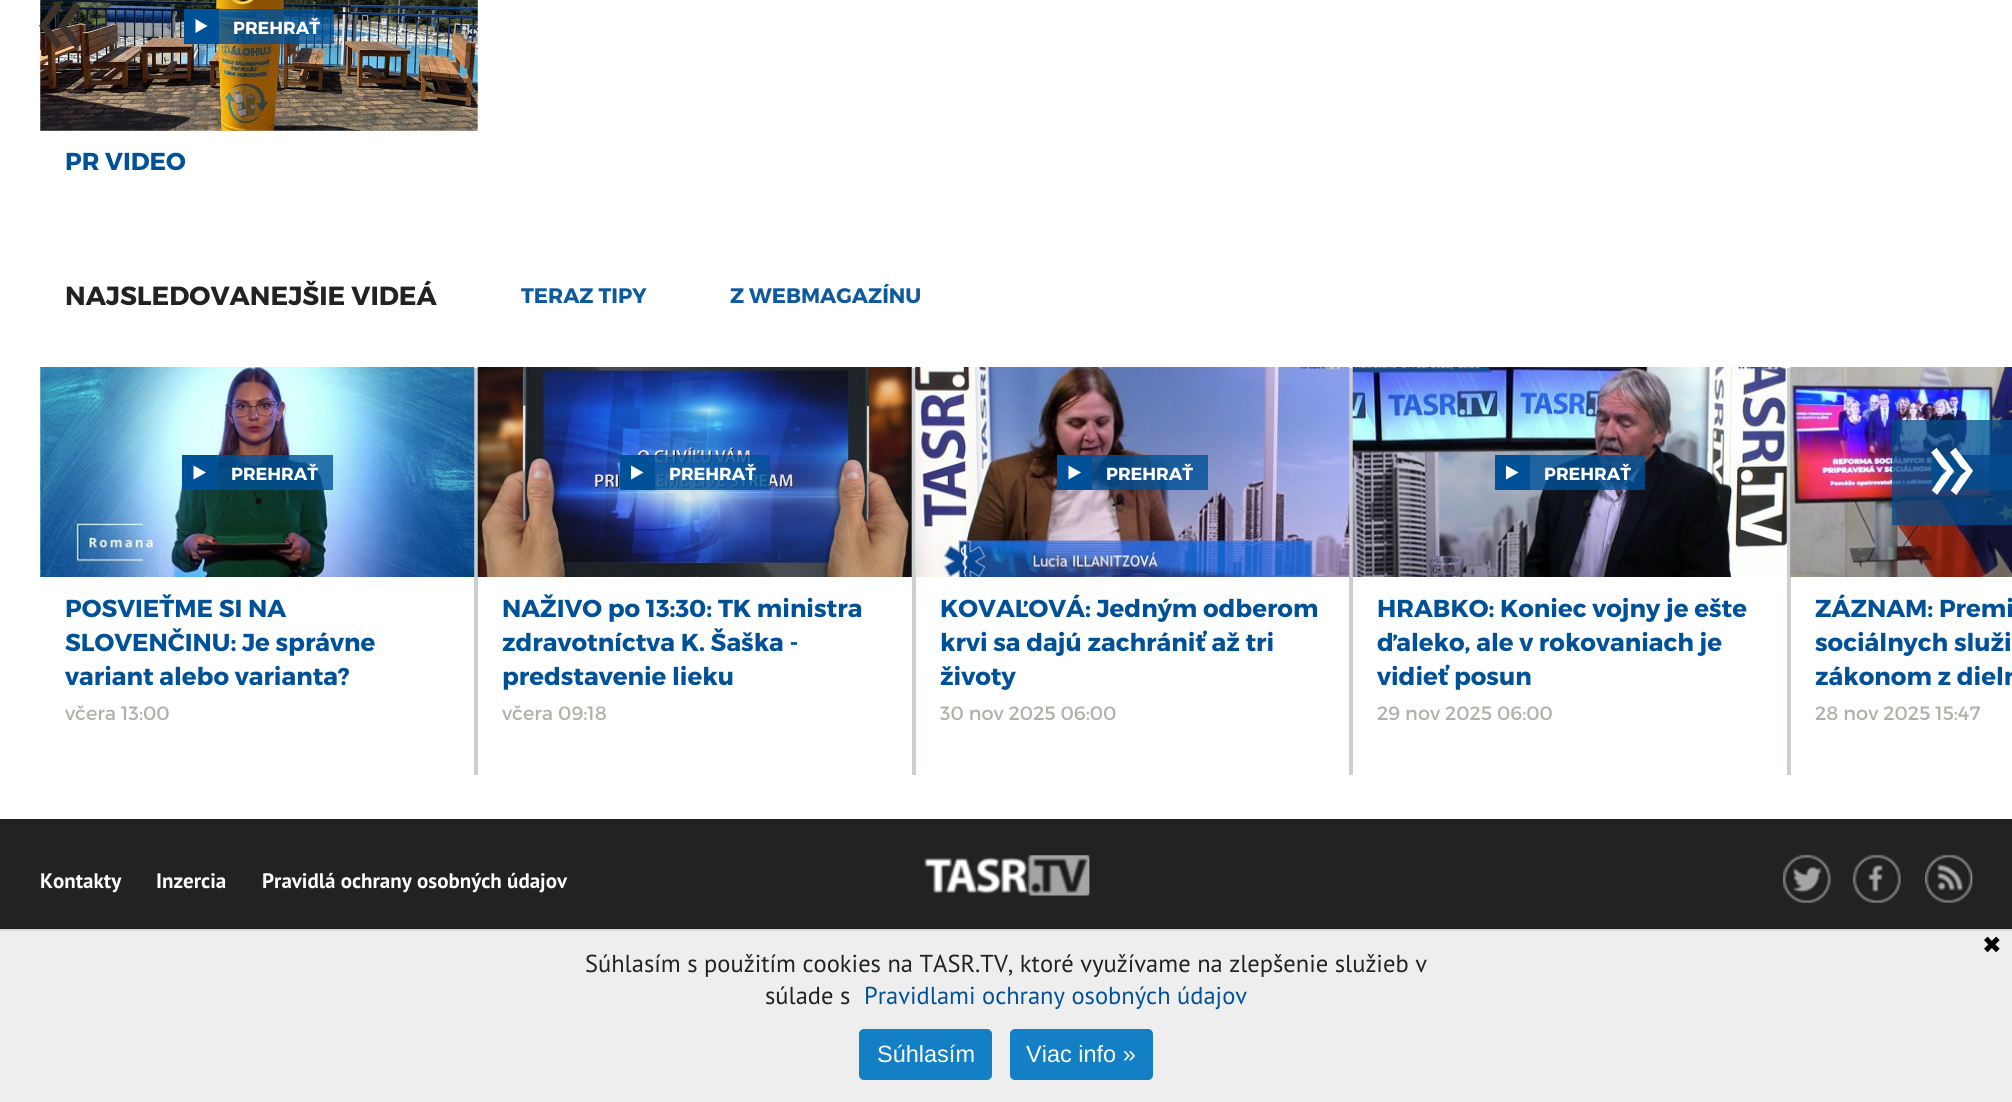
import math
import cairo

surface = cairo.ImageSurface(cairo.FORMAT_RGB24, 2012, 1102)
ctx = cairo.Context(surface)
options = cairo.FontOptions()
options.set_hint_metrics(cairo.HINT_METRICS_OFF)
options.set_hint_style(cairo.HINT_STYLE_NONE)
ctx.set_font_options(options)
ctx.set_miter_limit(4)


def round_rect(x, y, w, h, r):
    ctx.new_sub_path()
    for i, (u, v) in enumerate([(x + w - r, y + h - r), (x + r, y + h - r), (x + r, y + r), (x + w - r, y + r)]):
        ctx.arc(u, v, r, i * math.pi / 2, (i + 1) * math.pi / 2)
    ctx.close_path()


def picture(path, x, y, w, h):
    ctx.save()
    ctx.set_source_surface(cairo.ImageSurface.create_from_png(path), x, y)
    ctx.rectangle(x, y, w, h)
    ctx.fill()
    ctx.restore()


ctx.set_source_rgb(1, 1, 1)
ctx.paint()
picture("img1.png", 40, 0, 438, 131)
ctx.select_font_face("PT Sans")
ctx.set_font_size(105)
ctx.set_source_rgb(0.235, 0.196, 0.169)
ctx.move_to(35, 53)
ctx.show_text("«")
ctx.set_source_rgba(0.004, 0.318, 0.596, 0.8)
ctx.rectangle(219, 9, 115, 35)
ctx.fill()
ctx.set_source_rgb(0.004, 0.318, 0.596)
ctx.rectangle(184, 9, 35, 35)
ctx.fill()
ctx.set_source_rgb(1, 1, 1)
ctx.new_path()
ctx.move_to(195.5, 33)
ctx.line_to(195.5, 19)
ctx.line_to(207.5, 26)
ctx.close_path()
ctx.fill()
ctx.select_font_face("Montserrat", cairo.FONT_SLANT_NORMAL, cairo.FONT_WEIGHT_BOLD)
ctx.set_font_size(17.5)
ctx.move_to(233, 34)
ctx.show_text("PREHRAŤ")
ctx.set_font_size(24.5)
ctx.set_source_rgb(0.004, 0.318, 0.596)
ctx.move_to(65, 170)
ctx.show_text("PR VIDEO")
ctx.set_font_size(26.25)
ctx.set_source_rgb(0.133, 0.133, 0.133)
ctx.move_to(65, 305)
ctx.show_text("NAJSLEDOVANEJŠIE VIDEÁ")
ctx.set_font_size(21)
ctx.set_source_rgb(0.055, 0.353, 0.616)
ctx.move_to(521, 303)
ctx.show_text("TERAZ TIPY")
ctx.move_to(730, 303)
ctx.show_text("Z WEBMAGAZÍNU")
ctx.set_source_rgb(0.792, 0.812, 0.82)
ctx.rectangle(1787, 368, 4, 407)
ctx.fill()
picture("img6.png", 1790, 367, 222, 210)
ctx.set_source_rgba(0.004, 0.318, 0.596, 0.8)
ctx.rectangle(1967, 455, 45, 35)
ctx.fill()
ctx.set_source_rgb(0.004, 0.318, 0.596)
ctx.rectangle(1932, 455, 35, 35)
ctx.fill()
ctx.set_source_rgb(1, 1, 1)
ctx.new_path()
ctx.move_to(1943.5, 479.5)
ctx.line_to(1943.5, 465.5)
ctx.line_to(1956, 472.5)
ctx.close_path()
ctx.fill()
ctx.set_source_rgba(0.02, 0.298, 0.549, 0.75)
ctx.rectangle(1892, 420, 120, 105)
ctx.fill()
ctx.select_font_face("PT Sans")
ctx.set_font_size(105)
ctx.set_source_rgb(1, 1, 1)
ctx.move_to(1927, 499)
ctx.show_text("»")
ctx.set_source_rgb(0.792, 0.812, 0.82)
ctx.rectangle(474, 368, 4, 407)
ctx.fill()
picture("img2.png", 40, 367, 435, 210)
ctx.set_source_rgba(0.004, 0.318, 0.596, 0.8)
ctx.rectangle(217, 455, 116, 35)
ctx.fill()
ctx.set_source_rgb(0.004, 0.318, 0.596)
ctx.rectangle(182, 455, 35, 35)
ctx.fill()
ctx.set_source_rgb(1, 1, 1)
ctx.new_path()
ctx.move_to(193.5, 479.5)
ctx.line_to(193.5, 465.5)
ctx.line_to(206, 472.5)
ctx.close_path()
ctx.fill()
ctx.select_font_face("Montserrat", cairo.FONT_SLANT_NORMAL, cairo.FONT_WEIGHT_BOLD)
ctx.set_font_size(17.5)
ctx.move_to(231, 480)
ctx.show_text("PREHRAŤ")
ctx.set_font_size(24.5)
ctx.set_source_rgb(0.004, 0.318, 0.596)
ctx.move_to(65, 617)
ctx.show_text("POSVIEŤME SI NA")
ctx.move_to(65, 651)
ctx.show_text("SLOVENČINU: Je správne")
ctx.move_to(65, 685)
ctx.show_text("variant alebo varianta?")
ctx.select_font_face("Montserrat")
ctx.set_font_size(19.25)
ctx.set_source_rgb(0.702, 0.69, 0.663)
ctx.move_to(65, 720)
ctx.show_text("včera 13:00")
ctx.set_source_rgb(0.792, 0.812, 0.82)
ctx.rectangle(912, 368, 4, 407)
ctx.fill()
picture("img3.png", 477, 367, 435, 210)
ctx.set_source_rgba(0.004, 0.318, 0.596, 0.8)
ctx.rectangle(655, 455, 115, 35)
ctx.fill()
ctx.set_source_rgb(0.004, 0.318, 0.596)
ctx.rectangle(620, 455, 35, 35)
ctx.fill()
ctx.set_source_rgb(1, 1, 1)
ctx.new_path()
ctx.move_to(631, 479.5)
ctx.line_to(631, 465.5)
ctx.line_to(643.5, 472.5)
ctx.close_path()
ctx.fill()
ctx.select_font_face("Montserrat", cairo.FONT_SLANT_NORMAL, cairo.FONT_WEIGHT_BOLD)
ctx.set_font_size(17.5)
ctx.move_to(669, 480)
ctx.show_text("PREHRAŤ")
ctx.set_font_size(24.5)
ctx.set_source_rgb(0.004, 0.318, 0.596)
ctx.move_to(502, 617)
ctx.show_text("NAŽIVO po 13:30: TK ministra")
ctx.move_to(502, 651)
ctx.show_text("zdravotníctva K. Šaška -")
ctx.move_to(502, 685)
ctx.show_text("predstavenie lieku")
ctx.select_font_face("Montserrat")
ctx.set_font_size(19.25)
ctx.set_source_rgb(0.702, 0.69, 0.663)
ctx.move_to(502, 720)
ctx.show_text("včera 09:18")
ctx.set_source_rgb(0.792, 0.812, 0.82)
ctx.rectangle(1349, 368, 4, 407)
ctx.fill()
picture("img4.png", 915, 367, 435, 210)
ctx.set_source_rgba(0.004, 0.318, 0.596, 0.8)
ctx.rectangle(1092, 455, 116, 35)
ctx.fill()
ctx.set_source_rgb(0.004, 0.318, 0.596)
ctx.rectangle(1057, 455, 35, 35)
ctx.fill()
ctx.set_source_rgb(1, 1, 1)
ctx.new_path()
ctx.move_to(1068.5, 479.5)
ctx.line_to(1068.5, 465.5)
ctx.line_to(1081, 472.5)
ctx.close_path()
ctx.fill()
ctx.select_font_face("Montserrat", cairo.FONT_SLANT_NORMAL, cairo.FONT_WEIGHT_BOLD)
ctx.set_font_size(17.5)
ctx.move_to(1106, 480)
ctx.show_text("PREHRAŤ")
ctx.set_font_size(24.5)
ctx.set_source_rgb(0.004, 0.318, 0.596)
ctx.move_to(940, 617)
ctx.show_text("KOVAĽOVÁ: Jedným odberom")
ctx.move_to(940, 651)
ctx.show_text("krvi sa dajú zachrániť až tri")
ctx.move_to(940, 685)
ctx.show_text("životy")
ctx.select_font_face("Montserrat")
ctx.set_font_size(19.25)
ctx.set_source_rgb(0.702, 0.69, 0.663)
ctx.move_to(940, 720)
ctx.show_text("30 nov 2025 06:00")
picture("img5.png", 1352, 367, 435, 210)
ctx.set_source_rgba(0.004, 0.318, 0.596, 0.8)
ctx.rectangle(1530, 455, 115, 35)
ctx.fill()
ctx.set_source_rgb(0.004, 0.318, 0.596)
ctx.rectangle(1495, 455, 35, 35)
ctx.fill()
ctx.set_source_rgb(1, 1, 1)
ctx.new_path()
ctx.move_to(1506, 479.5)
ctx.line_to(1506, 465.5)
ctx.line_to(1518.5, 472.5)
ctx.close_path()
ctx.fill()
ctx.select_font_face("Montserrat", cairo.FONT_SLANT_NORMAL, cairo.FONT_WEIGHT_BOLD)
ctx.set_font_size(17.5)
ctx.move_to(1544, 480)
ctx.show_text("PREHRAŤ")
ctx.set_font_size(24.5)
ctx.set_source_rgb(0.004, 0.318, 0.596)
ctx.move_to(1377, 617)
ctx.show_text("HRABKO: Koniec vojny je ešte")
ctx.move_to(1377, 651)
ctx.show_text("ďaleko, ale v rokovaniach je")
ctx.move_to(1377, 685)
ctx.show_text("vidieť posun")
ctx.select_font_face("Montserrat")
ctx.set_font_size(19.25)
ctx.set_source_rgb(0.702, 0.69, 0.663)
ctx.move_to(1377, 720)
ctx.show_text("29 nov 2025 06:00")
ctx.select_font_face("Montserrat", cairo.FONT_SLANT_NORMAL, cairo.FONT_WEIGHT_BOLD)
ctx.set_font_size(24.5)
ctx.set_source_rgb(0.004, 0.318, 0.596)
ctx.move_to(1815, 617)
ctx.show_text("ZÁZNAM: Premi")
ctx.move_to(1815, 651)
ctx.show_text("sociálnych služi")
ctx.move_to(1815, 685)
ctx.show_text("zákonom z dieln")
ctx.select_font_face("Montserrat")
ctx.set_font_size(19.25)
ctx.set_source_rgb(0.702, 0.69, 0.663)
ctx.move_to(1815, 720)
ctx.show_text("28 nov 2025 15:47")
ctx.set_source_rgb(0.133, 0.133, 0.133)
ctx.rectangle(0, 819, 2012, 110)
ctx.fill()
ctx.select_font_face("PT Sans", cairo.FONT_SLANT_NORMAL, cairo.FONT_WEIGHT_BOLD)
ctx.set_font_size(21)
ctx.set_source_rgb(1, 1, 1)
ctx.move_to(40, 888)
ctx.show_text("Kontakty")
ctx.move_to(156, 888)
ctx.show_text("Inzercia")
ctx.move_to(262, 888)
ctx.show_text("Pravidlá ochrany osobných údajov")
picture("img7.png", 924, 855, 166, 41)
picture("img8.png", 1783, 854, 48, 49)
picture("img9.png", 1853, 854, 48, 49)
picture("img10.png", 1925, 854, 48, 49)
ctx.set_source_rgb(0.933, 0.933, 0.933)
ctx.rectangle(0, 931, 2012, 171)
ctx.fill()
ctx.set_source_rgb(0.855, 0.855, 0.855)
ctx.rectangle(0, 929, 2012, 2)
ctx.fill()
ctx.select_font_face("DejaVu Sans")
ctx.set_font_size(23.5)
ctx.set_source_rgb(0, 0, 0)
ctx.move_to(1982, 953)
ctx.show_text("✖")
ctx.select_font_face("PT Sans")
ctx.set_font_size(24.5)
ctx.set_source_rgb(0.133, 0.133, 0.133)
ctx.move_to(585, 972)
ctx.show_text("Súhlasím s použitím cookies na TASR.TV, ktoré využívame na zlepšenie služieb v")
ctx.move_to(765, 1004)
ctx.show_text("súlade s")
ctx.set_source_rgb(0.004, 0.318, 0.596)
ctx.move_to(864, 1004)
ctx.show_text("Pravidlami ochrany osobných údajov")
ctx.set_source_rgb(0.075, 0.498, 0.773)
round_rect(859, 1029, 133, 51, 5)
ctx.fill()
ctx.select_font_face("Liberation Sans")
ctx.set_font_size(23.5)
ctx.set_source_rgb(1, 1, 1)
ctx.move_to(877, 1062)
ctx.show_text("Súhlasím")
ctx.set_source_rgb(0.075, 0.498, 0.773)
round_rect(1010, 1029, 143, 51, 5)
ctx.fill()
ctx.set_source_rgb(1, 1, 1)
ctx.move_to(1026, 1062)
ctx.show_text("Viac info »")
surface.write_to_png("page.png")
